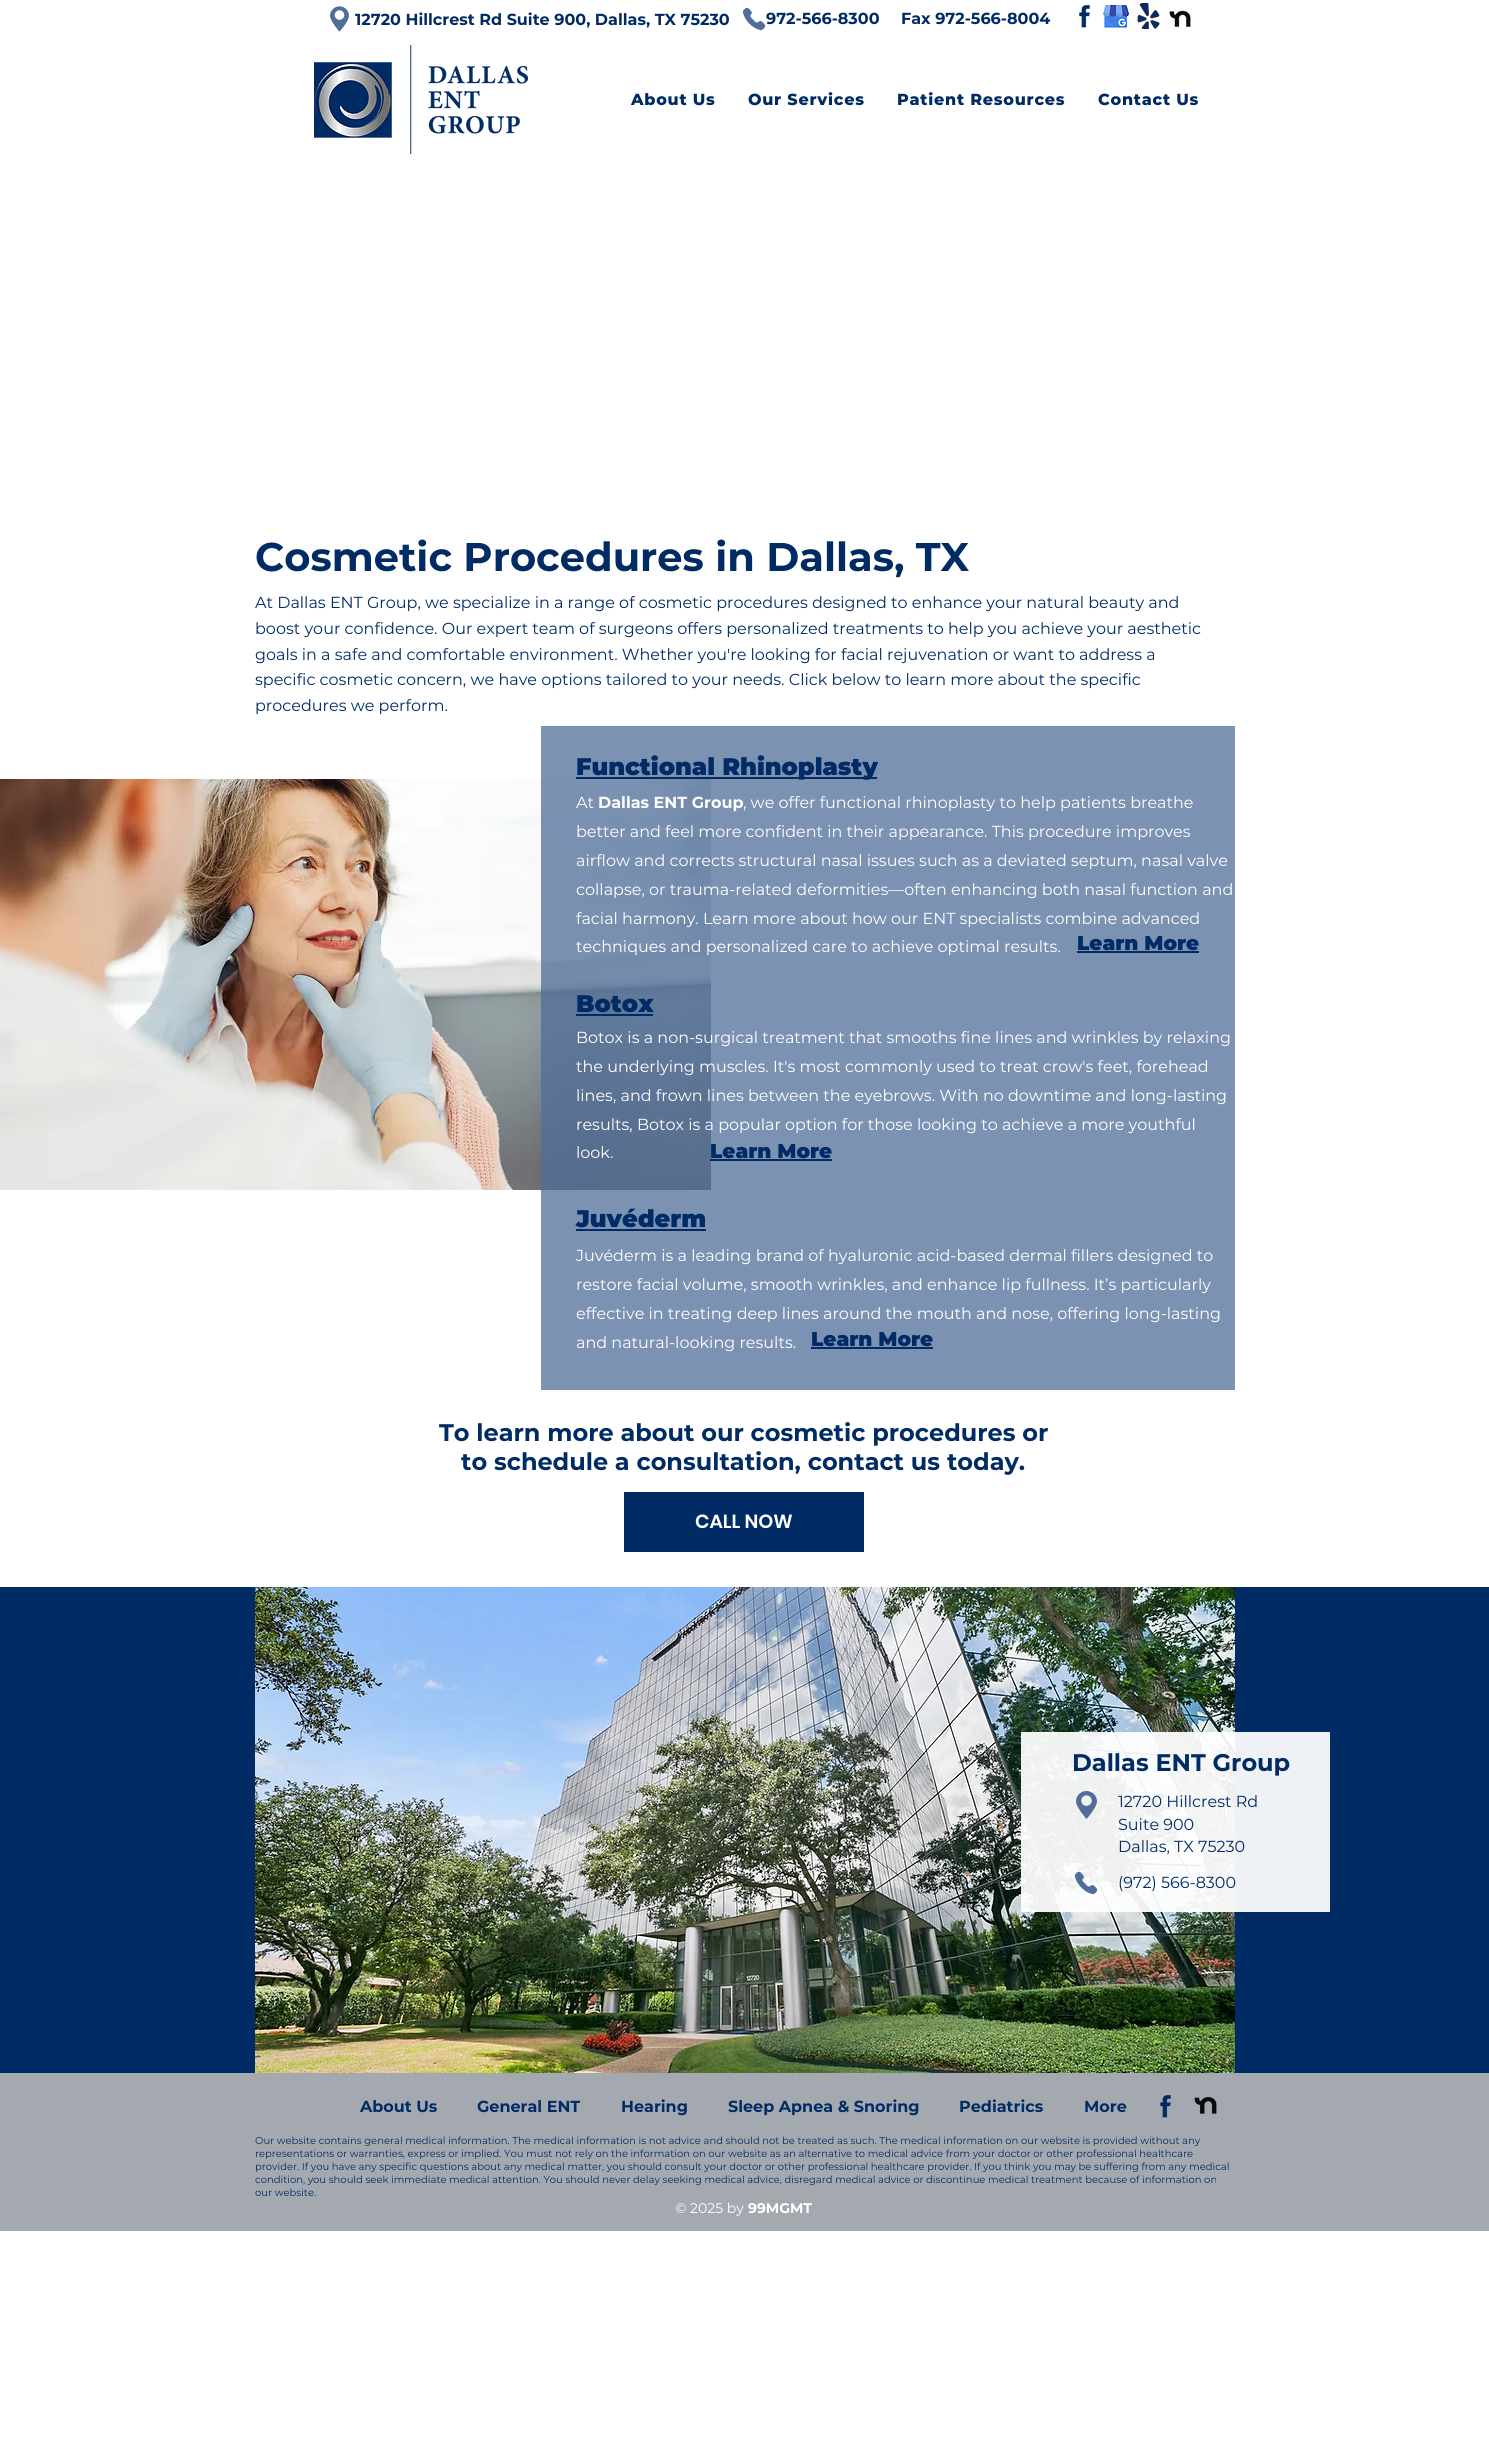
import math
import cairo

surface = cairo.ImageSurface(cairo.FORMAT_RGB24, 1489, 2446)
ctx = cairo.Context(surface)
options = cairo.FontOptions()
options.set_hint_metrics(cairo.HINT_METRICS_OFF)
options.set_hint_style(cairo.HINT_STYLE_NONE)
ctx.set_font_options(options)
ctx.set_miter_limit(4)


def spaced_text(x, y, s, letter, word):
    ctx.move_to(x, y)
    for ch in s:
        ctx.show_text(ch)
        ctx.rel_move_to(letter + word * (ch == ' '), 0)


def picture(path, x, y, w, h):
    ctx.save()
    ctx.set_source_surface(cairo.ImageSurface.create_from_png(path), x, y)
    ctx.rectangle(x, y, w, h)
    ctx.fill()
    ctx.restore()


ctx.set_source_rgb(1, 1, 1)
ctx.paint()
picture("img1.png", 330, 6, 19, 26)
ctx.select_font_face("Montserrat", cairo.FONT_SLANT_NORMAL, cairo.FONT_WEIGHT_BOLD)
ctx.set_font_size(16)
ctx.set_source_rgb(0, 0.169, 0.392)
ctx.move_to(355, 25)
ctx.show_text("12720 Hillcrest Rd Suite 900, Dallas, TX 75230")
picture("img2.png", 742, 7, 24, 24)
ctx.move_to(766, 24)
ctx.show_text("972-566-8300")
ctx.move_to(901, 24)
ctx.show_text("Fax 972-566-8004")
picture("img3.png", 1079, 4, 11, 24)
picture("img4.png", 1103, 4, 26, 24)
picture("img5.png", 1137, 3, 23, 26)
picture("img6.png", 1169, 10, 22, 17)
picture("img7.png", 314, 45, 214, 109)
ctx.select_font_face("Montserrat ExtraBold")
spaced_text(631, 105, "About Us", 0.75, 0)
spaced_text(748, 105, "Our Services", 0.75, 0)
spaced_text(897, 105, "Patient Resources", 0.75, 0)
spaced_text(1098, 105, "Contact Us", 0.75, 0)
ctx.select_font_face("Montserrat", cairo.FONT_SLANT_NORMAL, cairo.FONT_WEIGHT_BOLD)
ctx.set_font_size(40)
ctx.move_to(255, 571)
ctx.show_text("Cosmetic Procedures in Dallas, TX")
ctx.select_font_face("Montserrat")
ctx.set_font_size(16)
ctx.move_to(255, 608)
ctx.show_text("At Dallas ENT Group, we specialize in a range of cosmetic procedures designed to enhance your natural beauty and")
ctx.move_to(255, 634)
ctx.show_text("boost your confidence. Our expert team of surgeons offers personalized treatments to help you achieve your aesthetic")
ctx.move_to(255, 660)
ctx.show_text("goals in a safe and comfortable environment. Whether you're looking for facial rejuvenation or want to address a")
ctx.move_to(255, 685)
ctx.show_text("specific cosmetic concern, we have options tailored to your needs. Click below to learn more about the specific")
ctx.move_to(255, 711)
ctx.show_text("procedures we perform.")
picture("img8.png", 0, 779, 711, 411)
ctx.set_source_rgba(0.314, 0.431, 0.6, 0.75)
ctx.rectangle(541, 726, 694, 664)
ctx.fill()
ctx.set_source_rgb(0, 0.169, 0.392)
ctx.rectangle(576, 777, 301, 2)
ctx.fill()
ctx.select_font_face("Montserrat Thin")
ctx.set_font_size(24)
ctx.move_to(576, 775)
ctx.show_text("Functional Rhinoplasty")
ctx.select_font_face("Montserrat")
ctx.set_font_size(16)
ctx.set_source_rgb(1, 1, 1)
ctx.move_to(576, 808)
ctx.show_text("At")
ctx.select_font_face("Montserrat", cairo.FONT_SLANT_NORMAL, cairo.FONT_WEIGHT_BOLD)
ctx.move_to(598, 808)
ctx.show_text("Dallas ENT Group")
ctx.select_font_face("Montserrat")
ctx.move_to(743, 808)
ctx.show_text(", we offer functional rhinoplasty to help patients breathe")
ctx.move_to(576, 837)
ctx.show_text("better and feel more confident in their appearance. This procedure improves")
ctx.move_to(576, 866)
ctx.show_text("airflow and corrects structural nasal issues such as a deviated septum, nasal valve")
ctx.move_to(576, 895)
ctx.show_text("collapse, or trauma-related deformities—often enhancing both nasal function and")
ctx.move_to(576, 924)
ctx.show_text("facial harmony. Learn more about how our ENT specialists combine advanced")
ctx.move_to(576, 952)
ctx.show_text("techniques and personalized care to achieve optimal results.")
ctx.select_font_face("Montserrat Thin")
ctx.set_font_size(20)
ctx.set_source_rgb(0, 0.169, 0.392)
ctx.move_to(1077, 950)
ctx.show_text("Learn More")
ctx.rectangle(1077, 951, 122, 2)
ctx.fill()
ctx.set_font_size(24)
ctx.move_to(576, 1012)
ctx.show_text("Botox")
ctx.rectangle(576, 1014, 77, 2)
ctx.fill()
ctx.select_font_face("Montserrat")
ctx.set_font_size(16)
ctx.set_source_rgb(1, 1, 1)
ctx.move_to(576, 1043)
ctx.show_text("Botox is a non-surgical treatment that smooths fine lines and wrinkles by relaxing")
ctx.move_to(576, 1072)
ctx.show_text("the underlying muscles. It's most commonly used to treat crow's feet, forehead")
ctx.move_to(576, 1101)
ctx.show_text("lines, and frown lines between the eyebrows. With no downtime and long-lasting")
ctx.move_to(576, 1130)
ctx.show_text("results, Botox is a popular option for those looking to achieve a more youthful")
ctx.move_to(576, 1158)
ctx.show_text("look.")
ctx.select_font_face("Montserrat Thin")
ctx.set_font_size(20)
ctx.set_source_rgb(0, 0.169, 0.392)
ctx.move_to(710, 1158)
ctx.show_text("Learn More")
ctx.rectangle(710, 1159, 122, 2)
ctx.fill()
ctx.set_font_size(24)
ctx.move_to(576, 1227)
ctx.show_text("Juvéderm")
ctx.rectangle(576, 1229, 130, 2)
ctx.fill()
ctx.select_font_face("Montserrat")
ctx.set_font_size(16)
ctx.set_source_rgb(1, 1, 1)
ctx.move_to(576, 1261)
ctx.show_text("Juvéderm is a leading brand of hyaluronic acid-based dermal fillers designed to")
ctx.move_to(576, 1290)
ctx.show_text("restore facial volume, smooth wrinkles, and enhance lip fullness. It’s particularly")
ctx.move_to(576, 1319)
ctx.show_text("effective in treating deep lines around the mouth and nose, offering long-lasting")
ctx.move_to(576, 1348)
ctx.show_text("and natural-looking results.")
ctx.select_font_face("Montserrat Thin")
ctx.set_font_size(20)
ctx.set_source_rgb(0, 0.169, 0.392)
ctx.move_to(811, 1346)
ctx.show_text("Learn More")
ctx.rectangle(811, 1347, 122, 2)
ctx.fill()
ctx.select_font_face("Montserrat", cairo.FONT_SLANT_NORMAL, cairo.FONT_WEIGHT_BOLD)
ctx.set_font_size(24)
ctx.move_to(439, 1441)
ctx.show_text("To learn more about our cosmetic procedures or")
ctx.move_to(461, 1470)
ctx.show_text("to schedule a consultation, contact us today.")
ctx.rectangle(624, 1492, 240, 60)
ctx.fill()
ctx.select_font_face("Poppins SemiBold")
ctx.set_font_size(19)
ctx.set_source_rgb(1, 1, 1)
ctx.move_to(695, 1528)
ctx.show_text("CALL NOW")
ctx.set_source_rgb(0, 0.169, 0.392)
ctx.rectangle(0, 1587, 1489, 486)
ctx.fill()
picture("img9.png", 255, 1587, 980, 486)
ctx.set_source_rgba(1, 1, 1, 0.93)
ctx.rectangle(1021, 1732, 309, 180)
ctx.fill()
ctx.select_font_face("Montserrat", cairo.FONT_SLANT_NORMAL, cairo.FONT_WEIGHT_BOLD)
ctx.set_font_size(24)
ctx.set_source_rgb(0, 0.169, 0.392)
ctx.move_to(1072, 1771)
ctx.show_text("Dallas ENT Group")
picture("img10.png", 1076, 1791, 21, 28)
ctx.select_font_face("Montserrat")
ctx.set_font_size(16)
ctx.move_to(1118, 1807)
ctx.show_text("12720 Hillcrest Rd")
ctx.move_to(1118, 1830)
ctx.show_text("Suite 900")
ctx.move_to(1118, 1852)
ctx.show_text("Dallas, TX 75230")
picture("img11.png", 1074, 1871, 24, 24)
ctx.move_to(1118, 1888)
ctx.show_text("(972) 566-8300")
ctx.set_source_rgb(0.643, 0.663, 0.69)
ctx.rectangle(0, 2073, 1489, 158)
ctx.fill()
ctx.select_font_face("Montserrat", cairo.FONT_SLANT_NORMAL, cairo.FONT_WEIGHT_BOLD)
ctx.set_source_rgb(0, 0.169, 0.392)
ctx.move_to(360, 2112)
ctx.show_text("About Us")
ctx.move_to(477, 2112)
ctx.show_text("General ENT")
ctx.move_to(621, 2112)
ctx.show_text("Hearing")
ctx.move_to(728, 2112)
ctx.show_text("Sleep Apnea & Snoring")
ctx.move_to(959, 2112)
ctx.show_text("Pediatrics")
ctx.move_to(1084, 2112)
ctx.show_text("More")
picture("img12.png", 1160, 2095, 11, 23)
picture("img13.png", 1194, 2097, 23, 17)
ctx.select_font_face("Montserrat")
ctx.set_font_size(10)
ctx.move_to(255, 2144)
ctx.show_text("Our website contains general medical information. The medical information is not advice and should not be treated as such. The medical information on our website is provided without any")
ctx.move_to(255, 2157)
ctx.show_text("representations or warranties, express or implied. You must not rely on the information on our website as an alternative to medical advice from your doctor or other professional healthcare")
ctx.move_to(255, 2170)
ctx.show_text("provider. If you have any specific questions about any medical matter, you should consult your doctor or other professional healthcare provider. If you think you may be suffering from any medical")
ctx.move_to(255, 2183)
ctx.show_text("condition, you should seek immediate medical attention. You should never delay seeking medical advice, disregard medical advice or discontinue medical treatment because of information on")
ctx.move_to(255, 2196)
ctx.show_text("our website.")
ctx.set_font_size(14)
ctx.set_source_rgb(1, 1, 1)
ctx.move_to(675, 2213)
ctx.show_text("© 2025 by")
ctx.select_font_face("Montserrat", cairo.FONT_SLANT_NORMAL, cairo.FONT_WEIGHT_BOLD)
ctx.move_to(748, 2213)
ctx.show_text("99MGMT")
surface.write_to_png("page.png")
